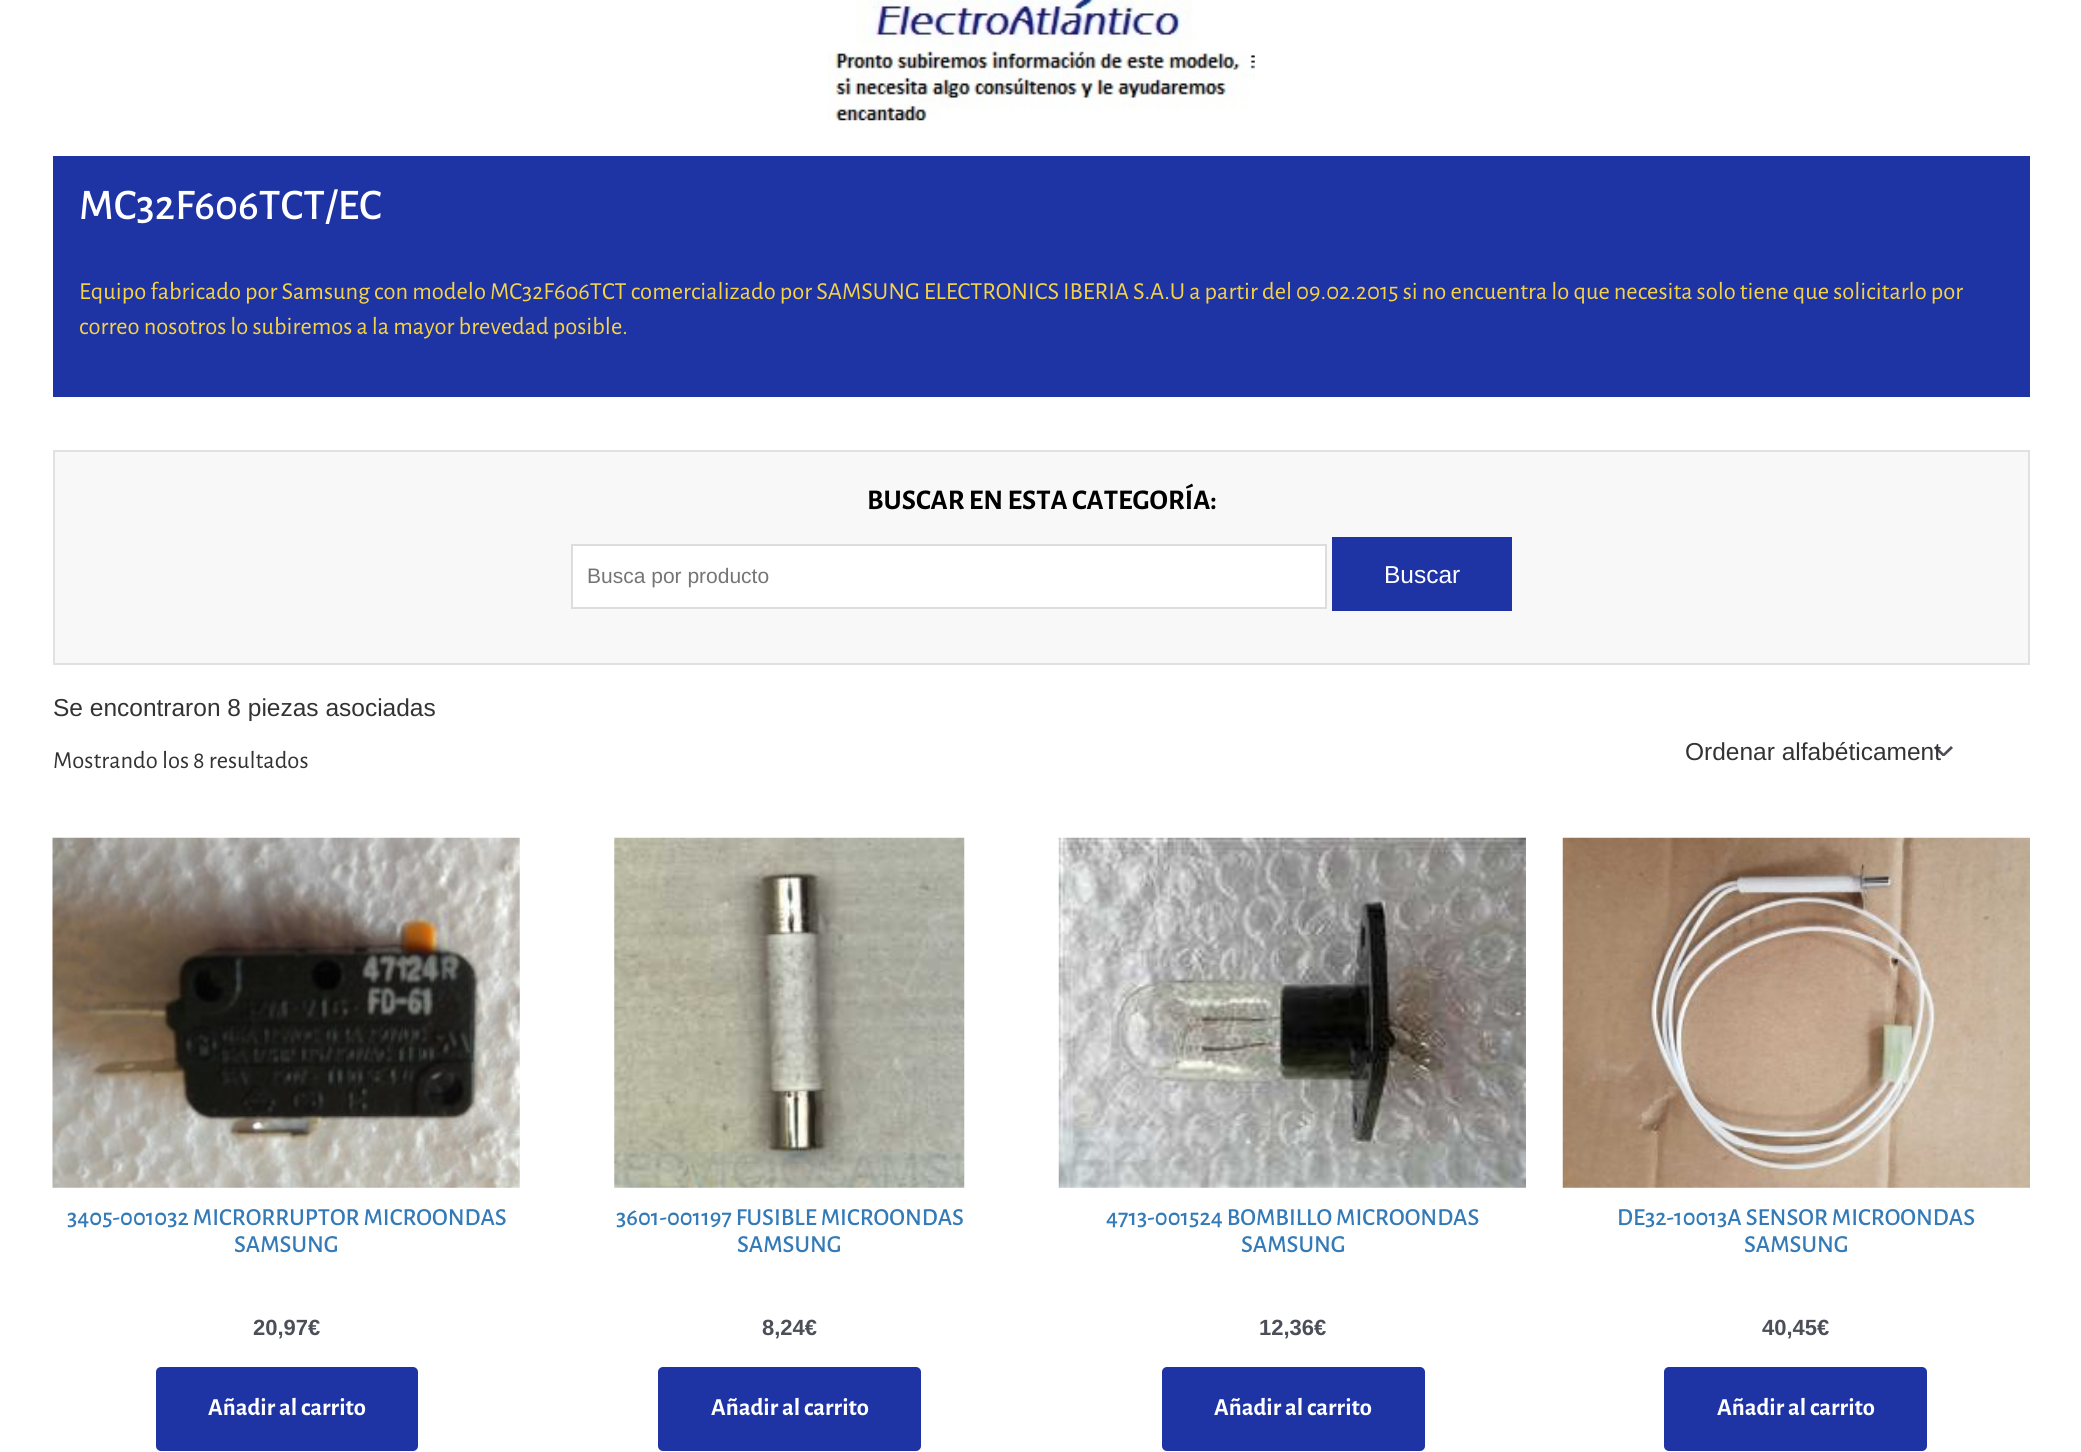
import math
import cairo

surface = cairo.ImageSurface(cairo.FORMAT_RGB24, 2081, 1452)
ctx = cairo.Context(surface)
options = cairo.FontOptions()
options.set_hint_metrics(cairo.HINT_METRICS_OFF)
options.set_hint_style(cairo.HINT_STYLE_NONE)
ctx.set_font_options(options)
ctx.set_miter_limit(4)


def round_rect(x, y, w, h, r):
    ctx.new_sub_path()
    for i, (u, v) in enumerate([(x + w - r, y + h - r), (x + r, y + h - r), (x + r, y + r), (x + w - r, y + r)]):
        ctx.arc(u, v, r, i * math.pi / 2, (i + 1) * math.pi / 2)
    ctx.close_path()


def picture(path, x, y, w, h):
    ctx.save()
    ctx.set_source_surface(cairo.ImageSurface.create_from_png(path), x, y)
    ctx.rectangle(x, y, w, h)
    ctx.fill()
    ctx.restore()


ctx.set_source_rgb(1, 1, 1)
ctx.paint()
picture("img1.png", 828, 0, 427, 121)
ctx.set_source_rgb(0.118, 0.204, 0.647)
ctx.rectangle(53, 156, 1977, 241)
ctx.fill()
ctx.select_font_face("Alegreya Sans Medium")
ctx.set_font_size(43.75)
ctx.set_source_rgb(1, 1, 1)
ctx.move_to(79, 219)
ctx.show_text("MC32F606TCT/EC")
ctx.select_font_face("Alegreya Sans")
ctx.set_font_size(24.5)
ctx.set_source_rgb(0.961, 0.827, 0.271)
ctx.move_to(79, 299)
ctx.show_text("Equipo fabricado por Samsung con modelo MC32F606TCT comercializado por SAMSUNG ELECTRONICS IBERIA S.A.U a partir del 09.02.2015 si no encuentra lo que necesita solo tiene que solicitarlo por")
ctx.move_to(79, 334)
ctx.show_text("correo nosotros lo subiremos a la mayor brevedad posible.")
ctx.set_source_rgb(0.969, 0.969, 0.969)
ctx.rectangle(54, 451, 1975, 213)
ctx.fill_preserve()
ctx.set_source_rgb(0.882, 0.882, 0.882)
ctx.stroke()
ctx.select_font_face("Alegreya Sans", cairo.FONT_SLANT_NORMAL, cairo.FONT_WEIGHT_BOLD)
ctx.set_font_size(28.5)
ctx.set_source_rgb(0, 0, 0)
ctx.move_to(867, 509)
ctx.show_text("BUSCAR EN ESTA CATEGORÍA:")
ctx.set_source_rgb(1, 1, 1)
ctx.rectangle(572, 545, 754, 63)
ctx.fill_preserve()
ctx.set_source_rgb(0.867, 0.867, 0.867)
ctx.stroke()
ctx.select_font_face("Liberation Sans")
ctx.set_font_size(21)
ctx.set_source_rgb(0.459, 0.459, 0.459)
ctx.move_to(587, 583)
ctx.show_text("Busca por producto")
ctx.set_source_rgb(0.118, 0.204, 0.647)
ctx.rectangle(1332, 537, 180, 74)
ctx.fill()
ctx.set_font_size(24.5)
ctx.set_source_rgb(1, 1, 1)
ctx.move_to(1384, 583)
ctx.show_text("Buscar")
ctx.set_source_rgb(0.2, 0.2, 0.2)
ctx.move_to(53, 716)
ctx.show_text("Se encontraron 8 piezas asociadas")
ctx.select_font_face("Alegreya Sans")
ctx.move_to(53, 768)
ctx.show_text("Mostrando los 8 resultados")
ctx.save()
ctx.rectangle(1934, 746, 19, 10)
ctx.clip()
ctx.set_source_rgb(0.294, 0.31, 0.345)
ctx.new_path()
ctx.move_to(1934, 748)
ctx.line_to(1943.5, 757)
ctx.line_to(1953, 748)
ctx.line_to(1951, 746)
ctx.line_to(1943.5, 753.5)
ctx.line_to(1936, 746)
ctx.close_path()
ctx.fill()
ctx.restore()
ctx.select_font_face("Liberation Sans")
ctx.move_to(1685, 760)
ctx.show_text("Ordenar alfabéticament")
picture("img2.png", 52, 837, 468, 351)
ctx.select_font_face("Alegreya Sans Medium")
ctx.set_source_rgb(0.2, 0.478, 0.718)
ctx.move_to(67, 1225)
ctx.show_text("3405-001032 MICRORRUPTOR MICROONDAS")
ctx.move_to(234, 1252)
ctx.show_text("SAMSUNG")
ctx.select_font_face("Liberation Sans", cairo.FONT_SLANT_NORMAL, cairo.FONT_WEIGHT_BOLD)
ctx.set_font_size(22)
ctx.set_source_rgb(0.294, 0.31, 0.345)
ctx.move_to(253, 1335)
ctx.show_text("20,97€")
ctx.set_source_rgb(0.118, 0.204, 0.647)
round_rect(156, 1367, 262, 84, 5)
ctx.fill()
ctx.select_font_face("Alegreya Sans", cairo.FONT_SLANT_NORMAL, cairo.FONT_WEIGHT_BOLD)
ctx.set_font_size(24.5)
ctx.set_source_rgb(1, 1, 1)
ctx.move_to(208, 1415)
ctx.show_text("Añadir al carrito")
picture("img3.png", 614, 837, 351, 351)
ctx.select_font_face("Alegreya Sans Medium")
ctx.set_source_rgb(0.2, 0.478, 0.718)
ctx.move_to(616, 1225)
ctx.show_text("3601-001197 FUSIBLE MICROONDAS")
ctx.move_to(737, 1252)
ctx.show_text("SAMSUNG")
ctx.select_font_face("Liberation Sans", cairo.FONT_SLANT_NORMAL, cairo.FONT_WEIGHT_BOLD)
ctx.set_font_size(22)
ctx.set_source_rgb(0.294, 0.31, 0.345)
ctx.move_to(762, 1335)
ctx.show_text("8,24€")
ctx.set_source_rgb(0.118, 0.204, 0.647)
round_rect(658, 1367, 263, 84, 5)
ctx.fill()
ctx.select_font_face("Alegreya Sans", cairo.FONT_SLANT_NORMAL, cairo.FONT_WEIGHT_BOLD)
ctx.set_font_size(24.5)
ctx.set_source_rgb(1, 1, 1)
ctx.move_to(711, 1415)
ctx.show_text("Añadir al carrito")
picture("img4.png", 1058, 837, 468, 351)
ctx.select_font_face("Alegreya Sans Medium")
ctx.set_source_rgb(0.2, 0.478, 0.718)
ctx.move_to(1106, 1225)
ctx.show_text("4713-001524 BOMBILLO MICROONDAS")
ctx.move_to(1241, 1252)
ctx.show_text("SAMSUNG")
ctx.select_font_face("Liberation Sans", cairo.FONT_SLANT_NORMAL, cairo.FONT_WEIGHT_BOLD)
ctx.set_font_size(22)
ctx.set_source_rgb(0.294, 0.31, 0.345)
ctx.move_to(1259, 1335)
ctx.show_text("12,36€")
ctx.set_source_rgb(0.118, 0.204, 0.647)
round_rect(1162, 1367, 263, 84, 5)
ctx.fill()
ctx.select_font_face("Alegreya Sans", cairo.FONT_SLANT_NORMAL, cairo.FONT_WEIGHT_BOLD)
ctx.set_font_size(24.5)
ctx.set_source_rgb(1, 1, 1)
ctx.move_to(1214, 1415)
ctx.show_text("Añadir al carrito")
picture("img5.png", 1562, 837, 468, 351)
ctx.select_font_face("Alegreya Sans Medium")
ctx.set_source_rgb(0.2, 0.478, 0.718)
ctx.move_to(1617, 1225)
ctx.show_text("DE32-10013A SENSOR MICROONDAS")
ctx.move_to(1744, 1252)
ctx.show_text("SAMSUNG")
ctx.select_font_face("Liberation Sans", cairo.FONT_SLANT_NORMAL, cairo.FONT_WEIGHT_BOLD)
ctx.set_font_size(22)
ctx.set_source_rgb(0.294, 0.31, 0.345)
ctx.move_to(1762, 1335)
ctx.show_text("40,45€")
ctx.set_source_rgb(0.118, 0.204, 0.647)
round_rect(1664, 1367, 263, 84, 5)
ctx.fill()
ctx.select_font_face("Alegreya Sans", cairo.FONT_SLANT_NORMAL, cairo.FONT_WEIGHT_BOLD)
ctx.set_font_size(24.5)
ctx.set_source_rgb(1, 1, 1)
ctx.move_to(1717, 1415)
ctx.show_text("Añadir al carrito")
surface.write_to_png("page.png")
